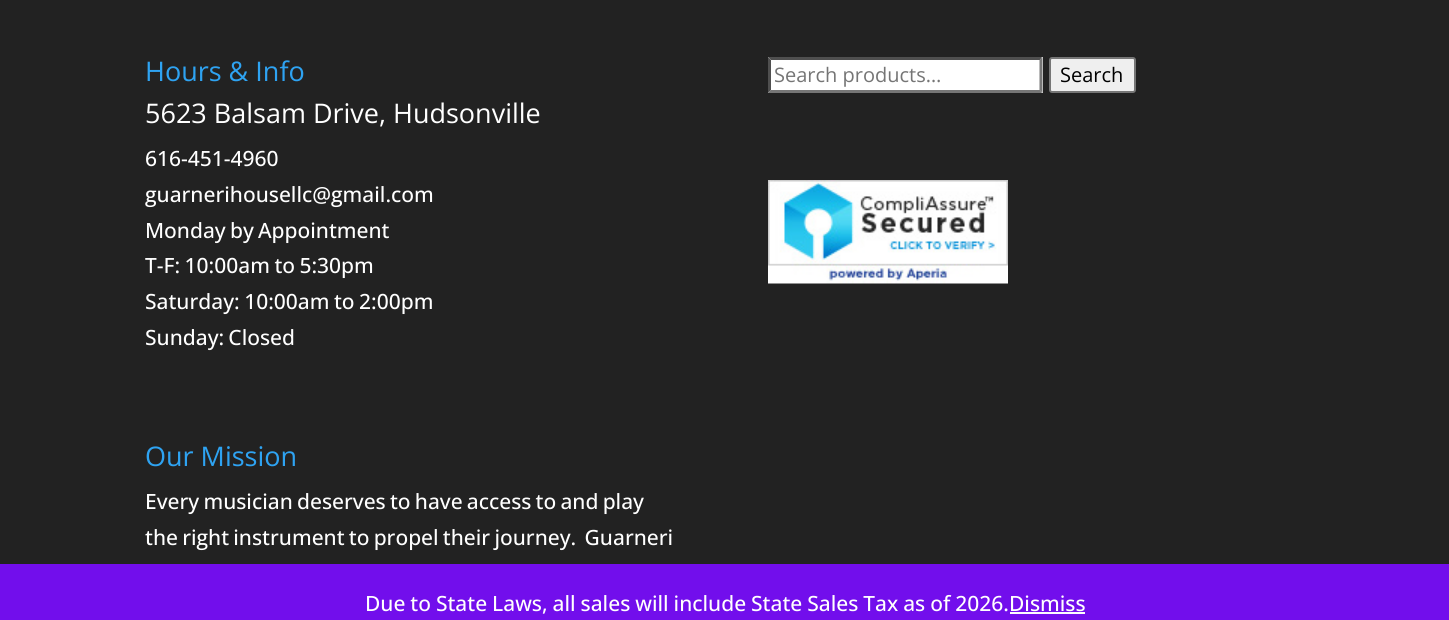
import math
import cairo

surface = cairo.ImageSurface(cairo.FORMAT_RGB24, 1449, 620)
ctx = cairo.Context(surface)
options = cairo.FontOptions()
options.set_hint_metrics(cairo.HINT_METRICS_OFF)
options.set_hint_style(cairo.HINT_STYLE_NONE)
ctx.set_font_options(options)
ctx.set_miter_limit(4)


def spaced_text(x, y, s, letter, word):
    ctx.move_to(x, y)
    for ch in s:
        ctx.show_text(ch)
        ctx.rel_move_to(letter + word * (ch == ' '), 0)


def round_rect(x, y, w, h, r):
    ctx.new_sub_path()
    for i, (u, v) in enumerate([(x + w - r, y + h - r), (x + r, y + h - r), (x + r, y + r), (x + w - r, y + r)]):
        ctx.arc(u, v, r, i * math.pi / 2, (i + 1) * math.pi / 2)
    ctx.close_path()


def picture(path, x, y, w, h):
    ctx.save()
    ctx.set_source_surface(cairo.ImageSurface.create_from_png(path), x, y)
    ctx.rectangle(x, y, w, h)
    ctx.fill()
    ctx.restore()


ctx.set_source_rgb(0.133, 0.133, 0.133)
ctx.paint()
ctx.select_font_face("Open Sans")
ctx.set_font_size(27)
ctx.set_source_rgb(0.18, 0.639, 0.949)
ctx.move_to(145, 81)
ctx.show_text("Hours & Info")
ctx.set_source_rgb(1, 1, 1)
ctx.move_to(145, 123)
ctx.show_text("5623 Balsam Drive, Hudsonville")
ctx.select_font_face("Open Sans Medium")
ctx.set_font_size(21)
ctx.move_to(145, 166)
ctx.show_text("616-451-4960")
ctx.move_to(145, 202)
ctx.show_text("guarnerihousellc@gmail.com")
spaced_text(145, 238, "Monday by Appointment", 0, -1.25)
spaced_text(145, 273, "T-F: 10:00am to 5:30pm", 0, -1)
spaced_text(145, 309, "Saturday: 10:00am to 2:00pm", 0, -1)
spaced_text(145, 345, "Sunday: Closed", 0, -1.25)
ctx.rectangle(768, 57, 275, 36)
ctx.fill()
ctx.set_source_rgb(0.31, 0.31, 0.31)
ctx.new_path()
ctx.move_to(768, 57)
ctx.line_to(1042, 57)
ctx.line_to(1040, 60)
ctx.line_to(771, 60)
ctx.close_path()
ctx.fill()
ctx.set_source_rgb(0.463, 0.463, 0.463)
ctx.new_path()
ctx.move_to(1042.5, 57)
ctx.line_to(1042.5, 93)
ctx.line_to(1039.5, 90)
ctx.line_to(1039.5, 60)
ctx.close_path()
ctx.fill()
ctx.new_path()
ctx.move_to(1042, 93)
ctx.line_to(768, 93)
ctx.line_to(771, 90)
ctx.line_to(1040, 90)
ctx.close_path()
ctx.fill()
ctx.set_source_rgb(0.31, 0.31, 0.31)
ctx.new_path()
ctx.move_to(768, 93)
ctx.line_to(768, 57)
ctx.line_to(771, 60)
ctx.line_to(771, 90)
ctx.close_path()
ctx.fill()
ctx.select_font_face("Open Sans")
ctx.set_font_size(20)
ctx.set_source_rgb(0.459, 0.459, 0.459)
ctx.move_to(774, 82)
ctx.show_text("Search products…")
ctx.set_source_rgb(0.937, 0.937, 0.937)
round_rect(1050, 58, 85, 34, 2)
ctx.fill_preserve()
ctx.set_source_rgb(0.463, 0.463, 0.463)
ctx.stroke()
ctx.set_source_rgb(0, 0, 0)
ctx.move_to(1060, 82)
ctx.show_text("Search")
picture("img1.png", 768, 180, 240, 104)
ctx.set_font_size(27)
ctx.set_source_rgb(0.18, 0.639, 0.949)
ctx.move_to(145, 466)
ctx.show_text("Our Mission")
ctx.select_font_face("Open Sans Medium")
ctx.set_font_size(21)
ctx.set_source_rgb(1, 1, 1)
spaced_text(145, 509, "Every musician deserves to have access to and play", 0, -1.25)
spaced_text(145, 545, "the right instrument to propel their journey.  Guarneri", 0, -1.25)
ctx.set_source_rgb(0.447, 0.055, 0.925)
ctx.rectangle(0, 564, 1449, 56)
ctx.fill()
ctx.set_source_rgb(1, 1, 1)
spaced_text(365, 611, "Due to State Laws, all sales will include State Sales Tax as of 2026.", 0, -0.5)
ctx.move_to(1009, 611)
ctx.show_text("Dismiss")
ctx.set_source_rgb(0.988, 0.984, 0.996)
ctx.rectangle(1010, 612, 75, 2)
ctx.fill()
surface.write_to_png("page.png")
